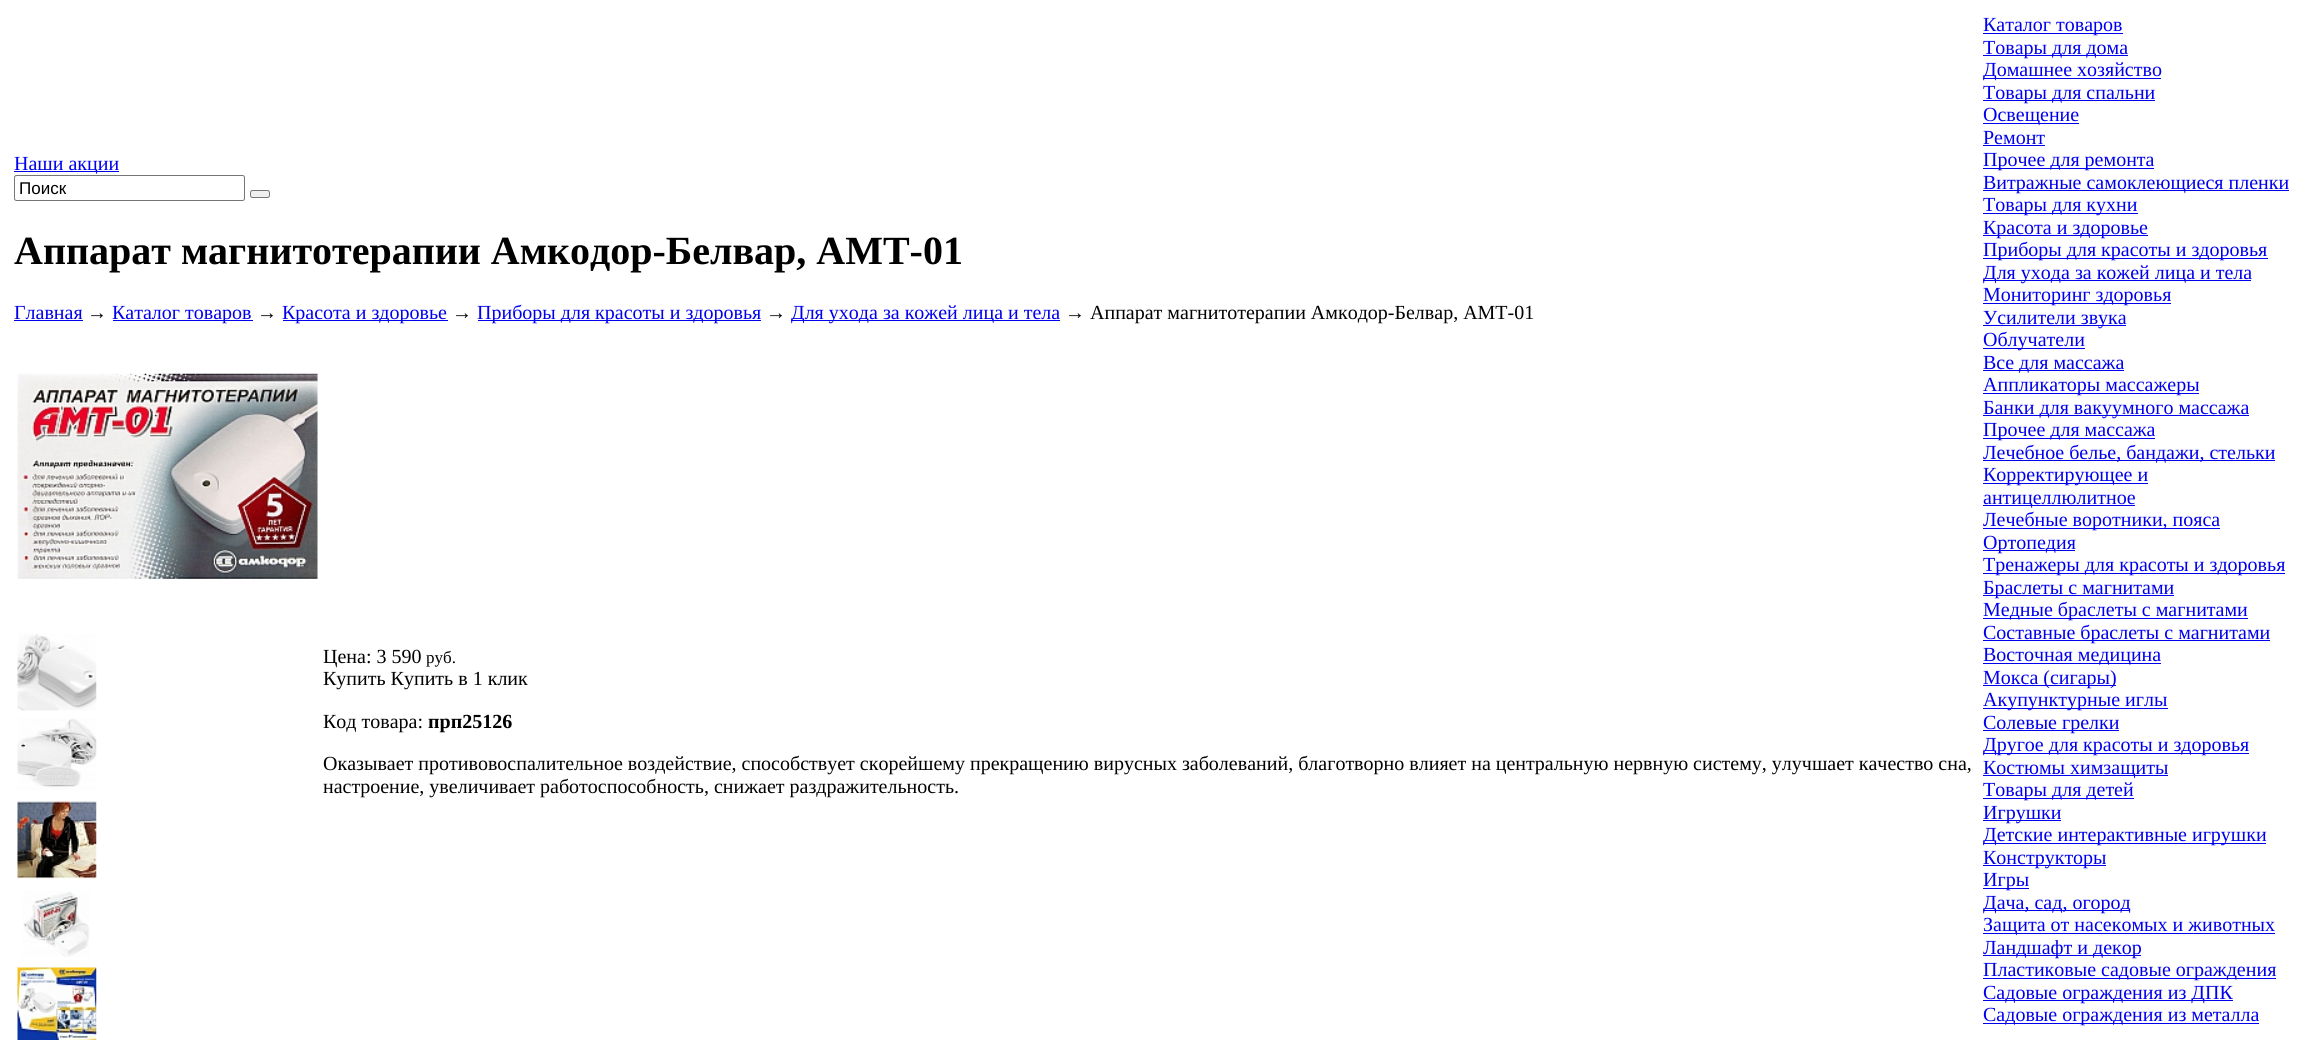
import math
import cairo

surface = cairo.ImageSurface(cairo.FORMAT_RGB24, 2312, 1040)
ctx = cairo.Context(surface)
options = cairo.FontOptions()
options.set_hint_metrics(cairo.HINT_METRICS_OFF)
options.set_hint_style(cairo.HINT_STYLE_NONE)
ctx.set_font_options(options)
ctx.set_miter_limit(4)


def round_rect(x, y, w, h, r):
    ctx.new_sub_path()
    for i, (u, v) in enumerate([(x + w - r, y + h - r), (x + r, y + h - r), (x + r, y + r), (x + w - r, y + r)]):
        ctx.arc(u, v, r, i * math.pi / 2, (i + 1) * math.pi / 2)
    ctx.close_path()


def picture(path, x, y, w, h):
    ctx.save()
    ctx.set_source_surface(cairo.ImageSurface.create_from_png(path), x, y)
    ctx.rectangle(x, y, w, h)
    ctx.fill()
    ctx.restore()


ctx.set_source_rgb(1, 1, 1)
ctx.paint()
ctx.set_source_rgb(0, 0, 0.933)
ctx.rectangle(14, 171, 105, 1)
ctx.fill()
ctx.select_font_face("Liberation Serif")
ctx.set_font_size(20)
ctx.move_to(14, 170)
ctx.show_text("Наши акции")
round_rect(14.5, 175.5, 230, 25, 2)
ctx.set_source_rgb(0.463, 0.463, 0.463)
ctx.set_line_width(1)
ctx.stroke()
ctx.select_font_face("Liberation Sans")
ctx.set_font_size(17)
ctx.set_source_rgb(0, 0, 0)
ctx.move_to(19, 194)
ctx.show_text("Поиск")
ctx.set_source_rgb(0.937, 0.937, 0.937)
round_rect(250.5, 190.5, 19, 7, 2)
ctx.fill_preserve()
ctx.set_source_rgb(0.463, 0.463, 0.463)
ctx.stroke()
ctx.select_font_face("Liberation Serif", cairo.FONT_SLANT_NORMAL, cairo.FONT_WEIGHT_BOLD)
ctx.set_font_size(40)
ctx.set_source_rgb(0, 0, 0)
ctx.move_to(14, 264)
ctx.show_text("Аппарат магнитотерапии Амкодор-Белвар, АМТ-01")
ctx.select_font_face("Liberation Serif")
ctx.set_font_size(20)
ctx.set_source_rgb(0, 0, 0.933)
ctx.move_to(14, 319)
ctx.show_text("Главная")
ctx.rectangle(14, 320, 69, 1)
ctx.fill()
ctx.set_source_rgb(0, 0, 0)
ctx.move_to(87, 319)
ctx.show_text("→")
ctx.set_source_rgb(0, 0, 0.933)
ctx.rectangle(113, 320, 140, 1)
ctx.fill()
ctx.move_to(112, 319)
ctx.show_text("Каталог товаров")
ctx.set_source_rgb(0, 0, 0)
ctx.move_to(257, 319)
ctx.show_text("→")
ctx.set_source_rgb(0, 0, 0.933)
ctx.rectangle(283, 320, 165, 1)
ctx.fill()
ctx.move_to(282, 319)
ctx.show_text("Красота и здоровье")
ctx.set_source_rgb(0, 0, 0)
ctx.move_to(452, 319)
ctx.show_text("→")
ctx.set_source_rgb(0, 0, 0.933)
ctx.rectangle(478, 320, 283, 1)
ctx.fill()
ctx.move_to(477, 319)
ctx.show_text("Приборы для красоты и здоровья")
ctx.set_source_rgb(0, 0, 0)
ctx.move_to(766, 319)
ctx.show_text("→")
ctx.set_source_rgb(0, 0, 0.933)
ctx.rectangle(791, 320, 269, 1)
ctx.fill()
ctx.move_to(791, 319)
ctx.show_text("Для ухода за кожей лица и тела")
ctx.set_source_rgb(0, 0, 0)
ctx.move_to(1065, 319)
ctx.show_text("→ Аппарат магнитотерапии Амкодор-Белвар, АМТ-01")
picture("img1.png", 17, 373, 301, 207)
picture("img2.png", 17, 633, 80, 78)
picture("img3.png", 17, 718, 80, 72)
picture("img4.png", 17, 800, 80, 79)
picture("img5.png", 23, 891, 67, 66)
picture("img6.png", 17, 967, 80, 73)
ctx.move_to(323, 663)
ctx.show_text("Цена: 3 590")
ctx.set_font_size(17)
ctx.move_to(426, 663)
ctx.show_text("руб.")
ctx.set_font_size(20)
ctx.move_to(323, 685)
ctx.show_text("Купить Купить в 1 клик")
ctx.move_to(323, 728)
ctx.show_text("Код товара:")
ctx.select_font_face("Liberation Serif", cairo.FONT_SLANT_NORMAL, cairo.FONT_WEIGHT_BOLD)
ctx.move_to(428, 728)
ctx.show_text("прп25126")
ctx.select_font_face("Liberation Serif")
ctx.move_to(323, 770)
ctx.show_text("Оказывает противовоспалительное воздействие, способствует скорейшему прекращению вирусных заболеваний, благотворно влияет на центральную нервную систему, улучшает качество сна,")
ctx.move_to(323, 793)
ctx.show_text("настроение, увеличивает работоспособность, снижает раздражительность.")
ctx.set_source_rgb(0, 0, 0.933)
ctx.rectangle(1983, 33, 140, 1)
ctx.fill()
ctx.move_to(1983, 31)
ctx.show_text("Каталог товаров")
ctx.rectangle(1983, 55, 145, 1)
ctx.fill()
ctx.move_to(1983, 54)
ctx.show_text("Товары для дома")
ctx.rectangle(1983, 78, 178, 1)
ctx.fill()
ctx.move_to(1983, 76)
ctx.show_text("Домашнее хозяйство")
ctx.rectangle(1983, 100, 172, 1)
ctx.fill()
ctx.move_to(1983, 99)
ctx.show_text("Товары для спальни")
ctx.rectangle(1983, 123, 96, 1)
ctx.fill()
ctx.move_to(1983, 121)
ctx.show_text("Освещение")
ctx.move_to(1983, 144)
ctx.show_text("Ремонт")
ctx.rectangle(1983, 145, 62, 1)
ctx.fill()
ctx.rectangle(1983, 168, 171, 1)
ctx.fill()
ctx.move_to(1983, 166)
ctx.show_text("Прочее для ремонта")
ctx.rectangle(1983, 190, 306, 1)
ctx.fill()
ctx.move_to(1983, 189)
ctx.show_text("Витражные самоклеющиеся пленки")
ctx.rectangle(1983, 213, 155, 1)
ctx.fill()
ctx.move_to(1983, 211)
ctx.show_text("Товары для кухни")
ctx.rectangle(1983, 235, 165, 1)
ctx.fill()
ctx.move_to(1983, 234)
ctx.show_text("Красота и здоровье")
ctx.rectangle(1983, 258, 285, 1)
ctx.fill()
ctx.move_to(1983, 256)
ctx.show_text("Приборы для красоты и здоровья")
ctx.rectangle(1983, 280, 268, 1)
ctx.fill()
ctx.move_to(1983, 279)
ctx.show_text("Для ухода за кожей лица и тела")
ctx.rectangle(1983, 303, 188, 1)
ctx.fill()
ctx.move_to(1983, 301)
ctx.show_text("Мониторинг здоровья")
ctx.rectangle(1983, 325, 143, 1)
ctx.fill()
ctx.move_to(1983, 324)
ctx.show_text("Усилители звука")
ctx.rectangle(1983, 348, 102, 1)
ctx.fill()
ctx.move_to(1983, 346)
ctx.show_text("Облучатели")
ctx.rectangle(1983, 370, 141, 1)
ctx.fill()
ctx.move_to(1983, 369)
ctx.show_text("Все для массажа")
ctx.rectangle(1983, 393, 216, 1)
ctx.fill()
ctx.move_to(1983, 391)
ctx.show_text("Аппликаторы массажеры")
ctx.rectangle(1983, 415, 266, 1)
ctx.fill()
ctx.move_to(1983, 414)
ctx.show_text("Банки для вакуумного массажа")
ctx.rectangle(1983, 438, 172, 1)
ctx.fill()
ctx.move_to(1983, 436)
ctx.show_text("Прочее для массажа")
ctx.rectangle(1983, 460, 292, 1)
ctx.fill()
ctx.move_to(1983, 459)
ctx.show_text("Лечебное белье, бандажи, стельки")
ctx.rectangle(1983, 483, 165, 1)
ctx.fill()
ctx.move_to(1983, 481)
ctx.show_text("Корректирующее и")
ctx.rectangle(1983, 505, 152, 1)
ctx.fill()
ctx.move_to(1983, 504)
ctx.show_text("антицеллюлитное")
ctx.rectangle(1983, 528, 237, 1)
ctx.fill()
ctx.move_to(1983, 526)
ctx.show_text("Лечебные воротники, пояса")
ctx.rectangle(1983, 550, 92, 1)
ctx.fill()
ctx.move_to(1983, 549)
ctx.show_text("Ортопедия")
ctx.rectangle(1983, 573, 302, 1)
ctx.fill()
ctx.move_to(1983, 571)
ctx.show_text("Тренажеры для красоты и здоровья")
ctx.rectangle(1983, 595, 191, 1)
ctx.fill()
ctx.move_to(1983, 594)
ctx.show_text("Браслеты с магнитами")
ctx.rectangle(1983, 618, 265, 1)
ctx.fill()
ctx.move_to(1983, 616)
ctx.show_text("Медные браслеты с магнитами")
ctx.rectangle(1983, 640, 287, 1)
ctx.fill()
ctx.move_to(1983, 639)
ctx.show_text("Составные браслеты с магнитами")
ctx.rectangle(1983, 663, 178, 1)
ctx.fill()
ctx.move_to(1983, 661)
ctx.show_text("Восточная медицина")
ctx.rectangle(1983, 685, 133, 1)
ctx.fill()
ctx.move_to(1983, 684)
ctx.show_text("Мокса (сигары)")
ctx.rectangle(1983, 708, 185, 1)
ctx.fill()
ctx.move_to(1983, 706)
ctx.show_text("Акупунктурные иглы")
ctx.rectangle(1983, 730, 136, 1)
ctx.fill()
ctx.move_to(1983, 729)
ctx.show_text("Солевые грелки")
ctx.rectangle(1983, 753, 266, 1)
ctx.fill()
ctx.move_to(1983, 751)
ctx.show_text("Другое для красоты и здоровья")
ctx.rectangle(1983, 775, 185, 1)
ctx.fill()
ctx.move_to(1983, 774)
ctx.show_text("Костюмы химзащиты")
ctx.rectangle(1983, 798, 151, 1)
ctx.fill()
ctx.move_to(1983, 796)
ctx.show_text("Товары для детей")
ctx.rectangle(1983, 820, 78, 1)
ctx.fill()
ctx.move_to(1983, 819)
ctx.show_text("Игрушки")
ctx.rectangle(1983, 843, 283, 1)
ctx.fill()
ctx.move_to(1983, 841)
ctx.show_text("Детские интерактивные игрушки")
ctx.rectangle(1983, 865, 123, 1)
ctx.fill()
ctx.move_to(1983, 864)
ctx.show_text("Конструкторы")
ctx.rectangle(1983, 888, 46, 1)
ctx.fill()
ctx.move_to(1983, 886)
ctx.show_text("Игры")
ctx.rectangle(1983, 910, 147, 1)
ctx.fill()
ctx.move_to(1983, 909)
ctx.show_text("Дача, сад, огород")
ctx.rectangle(1983, 933, 292, 1)
ctx.fill()
ctx.move_to(1983, 931)
ctx.show_text("Защита от насекомых и животных")
ctx.rectangle(1983, 955, 158, 1)
ctx.fill()
ctx.move_to(1983, 954)
ctx.show_text("Ландшафт и декор")
ctx.rectangle(1983, 978, 293, 1)
ctx.fill()
ctx.move_to(1983, 976)
ctx.show_text("Пластиковые садовые ограждения")
ctx.rectangle(1983, 1000, 250, 1)
ctx.fill()
ctx.move_to(1983, 999)
ctx.show_text("Садовые ограждения из ДПК")
ctx.rectangle(1983, 1023, 276, 1)
ctx.fill()
ctx.move_to(1983, 1021)
ctx.show_text("Садовые ограждения из металла")
surface.write_to_png("page.png")
